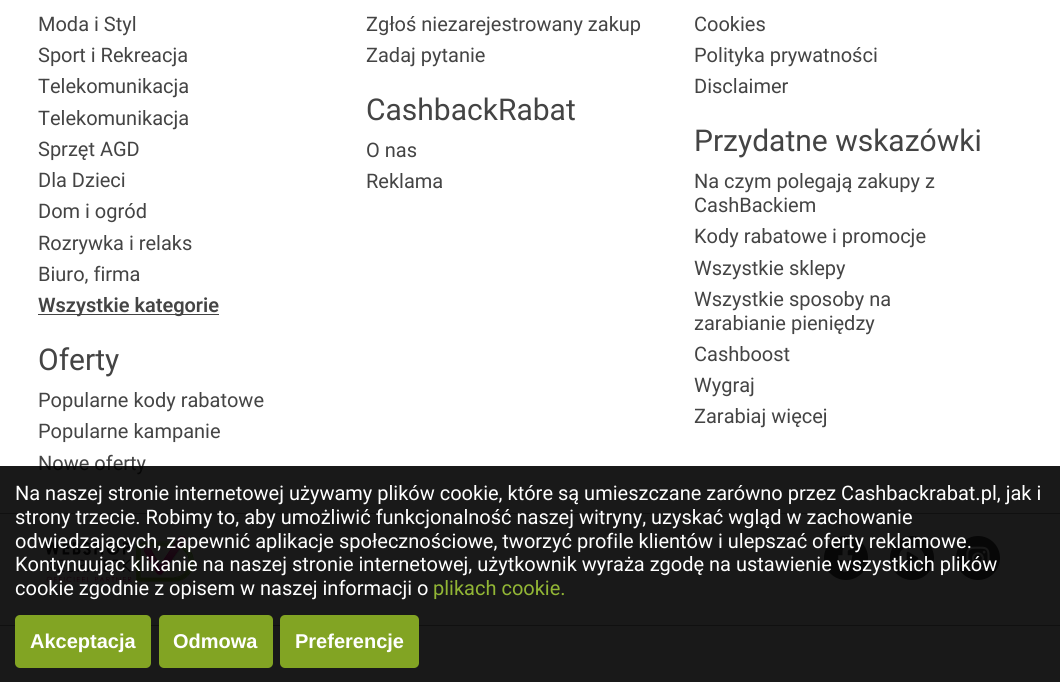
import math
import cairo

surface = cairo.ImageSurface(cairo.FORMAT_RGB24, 1060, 682)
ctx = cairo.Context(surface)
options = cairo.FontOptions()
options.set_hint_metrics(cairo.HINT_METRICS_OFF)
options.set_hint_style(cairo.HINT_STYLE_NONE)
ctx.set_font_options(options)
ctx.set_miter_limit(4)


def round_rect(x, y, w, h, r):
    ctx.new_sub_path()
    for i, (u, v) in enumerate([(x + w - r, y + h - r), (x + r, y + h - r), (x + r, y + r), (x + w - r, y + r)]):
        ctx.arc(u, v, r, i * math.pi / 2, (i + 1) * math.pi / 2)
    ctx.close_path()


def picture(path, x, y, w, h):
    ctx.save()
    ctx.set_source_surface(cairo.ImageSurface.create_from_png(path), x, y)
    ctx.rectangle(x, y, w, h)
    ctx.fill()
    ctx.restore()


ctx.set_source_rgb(1, 1, 1)
ctx.paint()
ctx.select_font_face("Roboto")
ctx.set_font_size(20)
ctx.set_source_rgb(0.267, 0.267, 0.267)
ctx.move_to(38, 31)
ctx.show_text("Moda i Styl")
ctx.move_to(38, 62)
ctx.show_text("Sport i Rekreacja")
ctx.move_to(38, 93)
ctx.show_text("Telekomunikacja")
ctx.move_to(38, 125)
ctx.show_text("Telekomunikacja")
ctx.move_to(38, 156)
ctx.show_text("Sprzęt AGD")
ctx.move_to(38, 187)
ctx.show_text("Dla Dzieci")
ctx.move_to(38, 218)
ctx.show_text("Dom i ogród")
ctx.move_to(38, 250)
ctx.show_text("Rozrywka i relaks")
ctx.move_to(38, 281)
ctx.show_text("Biuro, firma")
ctx.rectangle(38, 314, 181, 1)
ctx.fill()
ctx.select_font_face("Roboto SemiBold")
ctx.move_to(38, 312)
ctx.show_text("Wszystkie kategorie")
ctx.select_font_face("Roboto")
ctx.set_font_size(30)
ctx.move_to(38, 370)
ctx.show_text("Oferty")
ctx.set_font_size(20)
ctx.move_to(38, 407)
ctx.show_text("Popularne kody rabatowe")
ctx.move_to(38, 438)
ctx.show_text("Popularne kampanie")
ctx.move_to(38, 470)
ctx.show_text("Nowe oferty")
ctx.move_to(366, 31)
ctx.show_text("Zgłoś niezarejestrowany zakup")
ctx.move_to(366, 62)
ctx.show_text("Zadaj pytanie")
ctx.set_font_size(30)
ctx.move_to(366, 120)
ctx.show_text("CashbackRabat")
ctx.set_font_size(20)
ctx.move_to(366, 157)
ctx.show_text("O nas")
ctx.move_to(366, 188)
ctx.show_text("Reklama")
ctx.move_to(694, 31)
ctx.show_text("Cookies")
ctx.move_to(694, 62)
ctx.show_text("Polityka prywatności")
ctx.move_to(694, 93)
ctx.show_text("Disclaimer")
ctx.set_font_size(30)
ctx.move_to(694, 151)
ctx.show_text("Przydatne wskazówki")
ctx.set_font_size(20)
ctx.move_to(694, 188)
ctx.show_text("Na czym polegają zakupy z")
ctx.move_to(694, 212)
ctx.show_text("CashBackiem")
ctx.move_to(694, 243)
ctx.show_text("Kody rabatowe i promocje")
ctx.move_to(694, 275)
ctx.show_text("Wszystkie sklepy")
ctx.move_to(694, 306)
ctx.show_text("Wszystkie sposoby na")
ctx.move_to(694, 330)
ctx.show_text("zarabianie pieniędzy")
ctx.move_to(694, 361)
ctx.show_text("Cashboost")
ctx.move_to(694, 392)
ctx.show_text("Wygraj")
ctx.move_to(694, 423)
ctx.show_text("Zarabiaj więcej")
ctx.set_source_rgb(0.635, 0.635, 0.635)
ctx.rectangle(0, 513, 1060, 1)
ctx.fill()
ctx.rectangle(0, 625, 1060, 1)
ctx.fill()
picture("img1.png", 45, 536, 149, 46)
ctx.set_source_rgb(0.267, 0.267, 0.267)
ctx.arc(846, 558, 22, 0, 2 * math.pi)
ctx.fill()
picture("img2.png", 838, 545, 15, 27)
ctx.arc(912, 558, 22, 0, 2 * math.pi)
ctx.fill()
picture("img3.png", 898, 545, 27, 27)
ctx.arc(978, 558, 22, 0, 2 * math.pi)
ctx.fill()
picture("img4.png", 966, 546, 24, 24)
ctx.set_source_rgba(0, 0, 0, 0.9)
ctx.rectangle(0, 466, 1060, 216)
ctx.fill()
ctx.set_source_rgb(1, 1, 1)
ctx.move_to(15, 500)
ctx.show_text("Na naszej stronie internetowej używamy plików cookie, które są umieszczane zarówno przez Cashbackrabat.pl, jak i")
ctx.move_to(15, 524)
ctx.show_text("strony trzecie. Robimy to, aby umożliwić funkcjonalność naszej witryny, uzyskać wgląd w zachowanie")
ctx.move_to(15, 548)
ctx.show_text("odwiedzających, zapewnić aplikacje społecznościowe, tworzyć profile klientów i ulepszać oferty reklamowe.")
ctx.move_to(15, 571)
ctx.show_text("Kontynuując klikanie na naszej stronie internetowej, użytkownik wyraża zgodę na ustawienie wszystkich plików")
ctx.move_to(15, 595)
ctx.show_text("cookie zgodnie z opisem w naszej informacji o")
ctx.set_source_rgb(0.573, 0.714, 0.208)
ctx.move_to(433, 595)
ctx.show_text("plikach cookie.")
ctx.set_source_rgb(0.51, 0.643, 0.137)
round_rect(15, 615, 136, 53, 5)
ctx.fill()
ctx.select_font_face("Liberation Sans", cairo.FONT_SLANT_NORMAL, cairo.FONT_WEIGHT_BOLD)
ctx.set_source_rgb(1, 1, 1)
ctx.move_to(30, 648)
ctx.show_text("Akceptacja")
ctx.set_source_rgb(0.51, 0.643, 0.137)
round_rect(159, 615, 114, 53, 5)
ctx.fill()
ctx.set_source_rgb(1, 1, 1)
ctx.move_to(173, 648)
ctx.show_text("Odmowa")
ctx.set_source_rgb(0.51, 0.643, 0.137)
round_rect(280, 615, 139, 53, 5)
ctx.fill()
ctx.set_source_rgb(1, 1, 1)
ctx.move_to(295, 648)
ctx.show_text("Preferencje")
surface.write_to_png("page.png")
